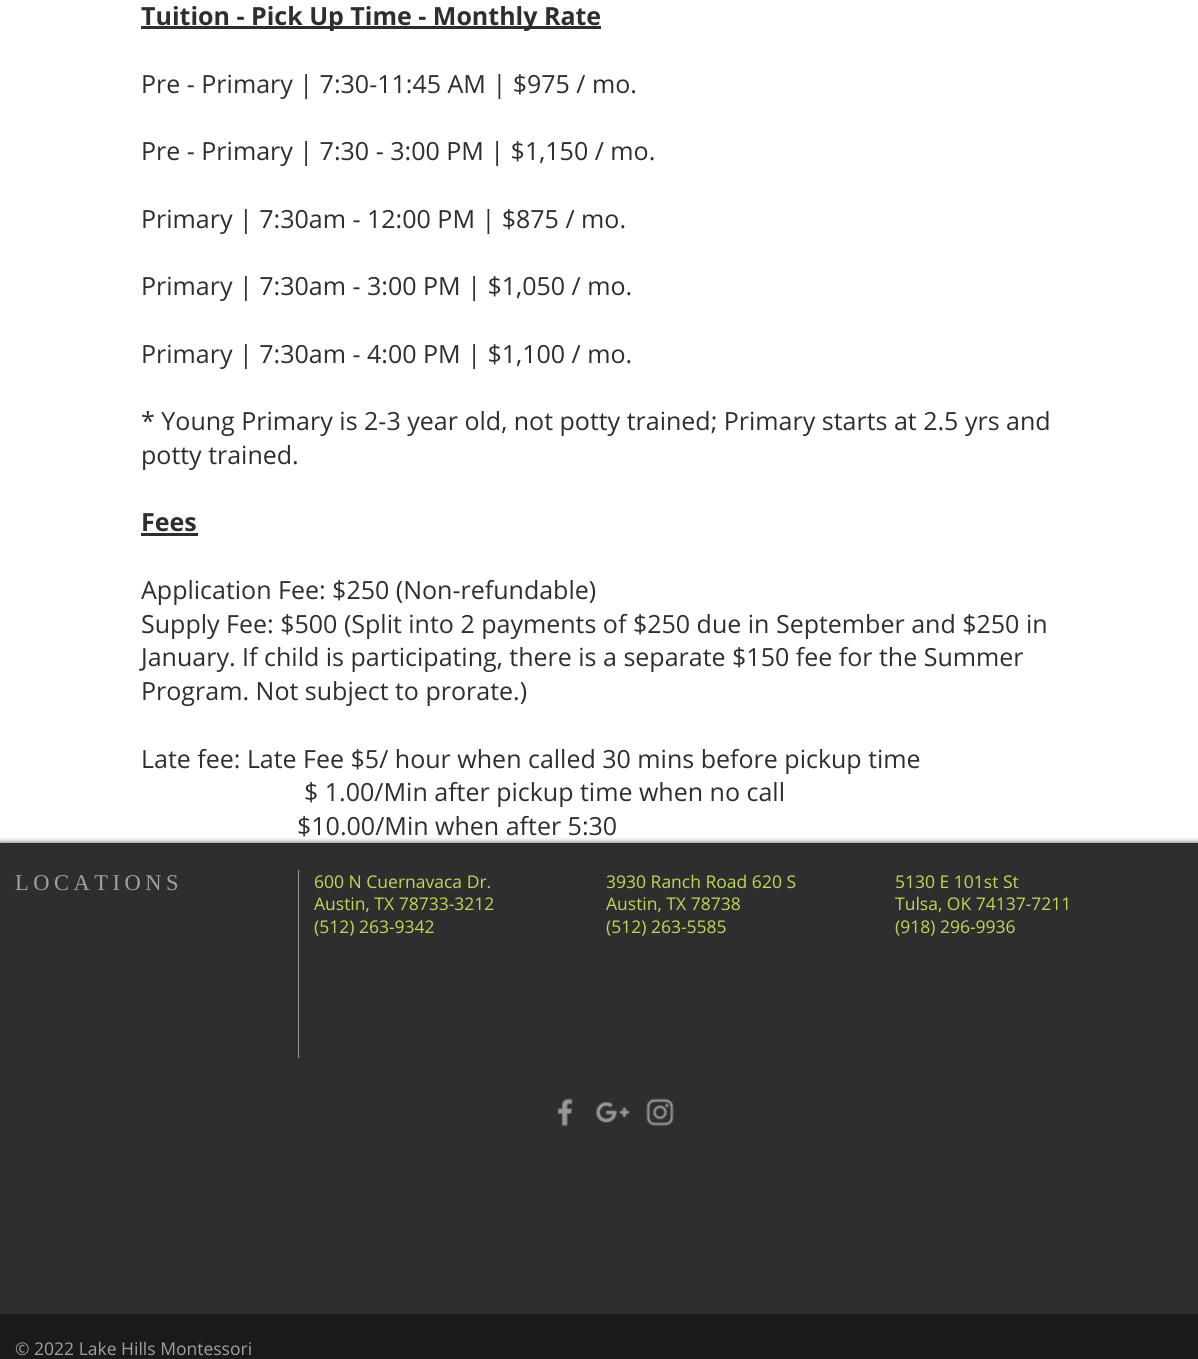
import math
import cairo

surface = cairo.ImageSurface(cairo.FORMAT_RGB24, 1198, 1359)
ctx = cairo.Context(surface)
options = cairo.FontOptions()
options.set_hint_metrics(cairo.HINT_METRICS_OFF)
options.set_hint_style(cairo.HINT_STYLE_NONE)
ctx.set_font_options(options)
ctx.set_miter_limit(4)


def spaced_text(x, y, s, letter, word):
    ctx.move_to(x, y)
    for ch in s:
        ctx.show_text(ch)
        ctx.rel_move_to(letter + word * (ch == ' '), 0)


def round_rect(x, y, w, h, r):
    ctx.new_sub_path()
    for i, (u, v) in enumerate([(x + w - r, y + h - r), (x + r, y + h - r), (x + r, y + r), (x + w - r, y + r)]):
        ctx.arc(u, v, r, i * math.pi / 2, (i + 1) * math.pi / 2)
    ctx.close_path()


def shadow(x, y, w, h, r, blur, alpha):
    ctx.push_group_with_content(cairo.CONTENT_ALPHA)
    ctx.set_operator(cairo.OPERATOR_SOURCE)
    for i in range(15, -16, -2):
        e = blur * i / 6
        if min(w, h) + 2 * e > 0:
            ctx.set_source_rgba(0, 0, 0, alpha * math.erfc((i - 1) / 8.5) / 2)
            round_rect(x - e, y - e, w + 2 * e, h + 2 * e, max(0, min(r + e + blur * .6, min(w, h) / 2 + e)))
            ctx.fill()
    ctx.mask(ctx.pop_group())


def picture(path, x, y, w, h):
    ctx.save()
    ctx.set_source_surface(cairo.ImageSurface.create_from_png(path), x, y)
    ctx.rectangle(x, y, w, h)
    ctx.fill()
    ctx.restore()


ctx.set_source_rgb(1, 1, 1)
ctx.paint()
ctx.set_source_rgb(0.184, 0.18, 0.18)
ctx.rectangle(141, 26, 460, 3)
ctx.fill()
ctx.select_font_face("Open Sans", cairo.FONT_SLANT_NORMAL, cairo.FONT_WEIGHT_BOLD)
ctx.set_font_size(25)
ctx.move_to(141, 25)
ctx.show_text("Tuition - Pick Up Time - Monthly Rate")
ctx.select_font_face("Open Sans")
ctx.move_to(141, 93)
ctx.show_text("Pre - Primary | 7:30-11:45 AM | $975 / mo.")
ctx.move_to(141, 160)
ctx.show_text("Pre - Primary | 7:30 - 3:00 PM | $1,150 / mo.")
ctx.move_to(141, 228)
ctx.show_text("Primary | 7:30am - 12:00 PM | $875 / mo.")
ctx.move_to(141, 295)
ctx.show_text("Primary | 7:30am - 3:00 PM | $1,050 / mo.")
ctx.move_to(141, 363)
ctx.show_text("Primary | 7:30am - 4:00 PM | $1,100 / mo.")
ctx.move_to(141, 430)
ctx.show_text("* Young Primary is 2-3 year old, not potty trained; Primary starts at 2.5 yrs and")
ctx.move_to(141, 464)
ctx.show_text("potty trained.")
ctx.select_font_face("Open Sans", cairo.FONT_SLANT_NORMAL, cairo.FONT_WEIGHT_BOLD)
ctx.move_to(141, 531)
ctx.show_text("Fees")
ctx.rectangle(141, 533, 57, 3)
ctx.fill()
ctx.select_font_face("Open Sans")
ctx.move_to(141, 599)
ctx.show_text("Application Fee: $250 (Non-refundable)")
ctx.move_to(141, 633)
ctx.show_text("Supply Fee: $500 (Split into 2 payments of $250 due in September and $250 in")
ctx.move_to(141, 666)
ctx.show_text("January. If child is participating, there is a separate $150 fee for the Summer")
ctx.move_to(141, 700)
ctx.show_text("Program. Not subject to prorate.)")
ctx.move_to(141, 768)
ctx.show_text("Late fee: Late Fee $5/ hour when called 30 mins before pickup time")
ctx.move_to(304, 801)
ctx.show_text("$ 1.00/Min after pickup time when no call")
ctx.move_to(297, 835)
ctx.show_text("$10.00/Min when after 5:30")
ctx.set_source_rgb(0, 0, 0)
shadow(0, 843, 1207, 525, 0, 3, 0.7)
ctx.set_source_rgb(0.184, 0.18, 0.18)
ctx.rectangle(0, 843, 1198, 471)
ctx.fill()
ctx.select_font_face("Liberation Serif")
ctx.set_font_size(22.5)
ctx.set_source_rgb(0.627, 0.627, 0.624)
spaced_text(15, 890, "LOCATIONS", 4.5, 0)
ctx.set_source_rgb(0.6, 0.6, 0.6)
ctx.rectangle(298, 870, 1, 188)
ctx.fill()
ctx.select_font_face("Open Sans")
ctx.set_font_size(17.5)
ctx.set_source_rgb(0.729, 0.855, 0.333)
ctx.move_to(314, 888)
ctx.show_text("600 N Cuernavaca Dr.")
ctx.move_to(314, 910)
ctx.show_text("Austin, TX 78733-3212")
ctx.move_to(314, 933)
ctx.show_text("(512) 263-9342")
ctx.move_to(606, 888)
ctx.show_text("3930 Ranch Road 620 S")
ctx.move_to(606, 910)
ctx.show_text("Austin, TX 78738")
ctx.move_to(606, 933)
ctx.show_text("(512) 263-5585")
ctx.move_to(895, 888)
ctx.show_text("5130 E 101st St")
ctx.move_to(895, 910)
ctx.show_text("Tulsa, OK 74137-7211")
ctx.move_to(895, 933)
ctx.show_text("(918) 296-9936")
picture("img1.png", 557, 1098, 16, 29)
picture("img2.png", 596, 1101, 34, 22)
picture("img3.png", 646, 1098, 28, 29)
ctx.set_source_rgb(0.106, 0.102, 0.102)
ctx.rectangle(0, 1314, 1198, 45)
ctx.fill()
ctx.set_source_rgb(0.627, 0.627, 0.624)
ctx.move_to(15, 1355)
ctx.show_text("© 2022 Lake Hills Montessori")
surface.write_to_png("page.png")
